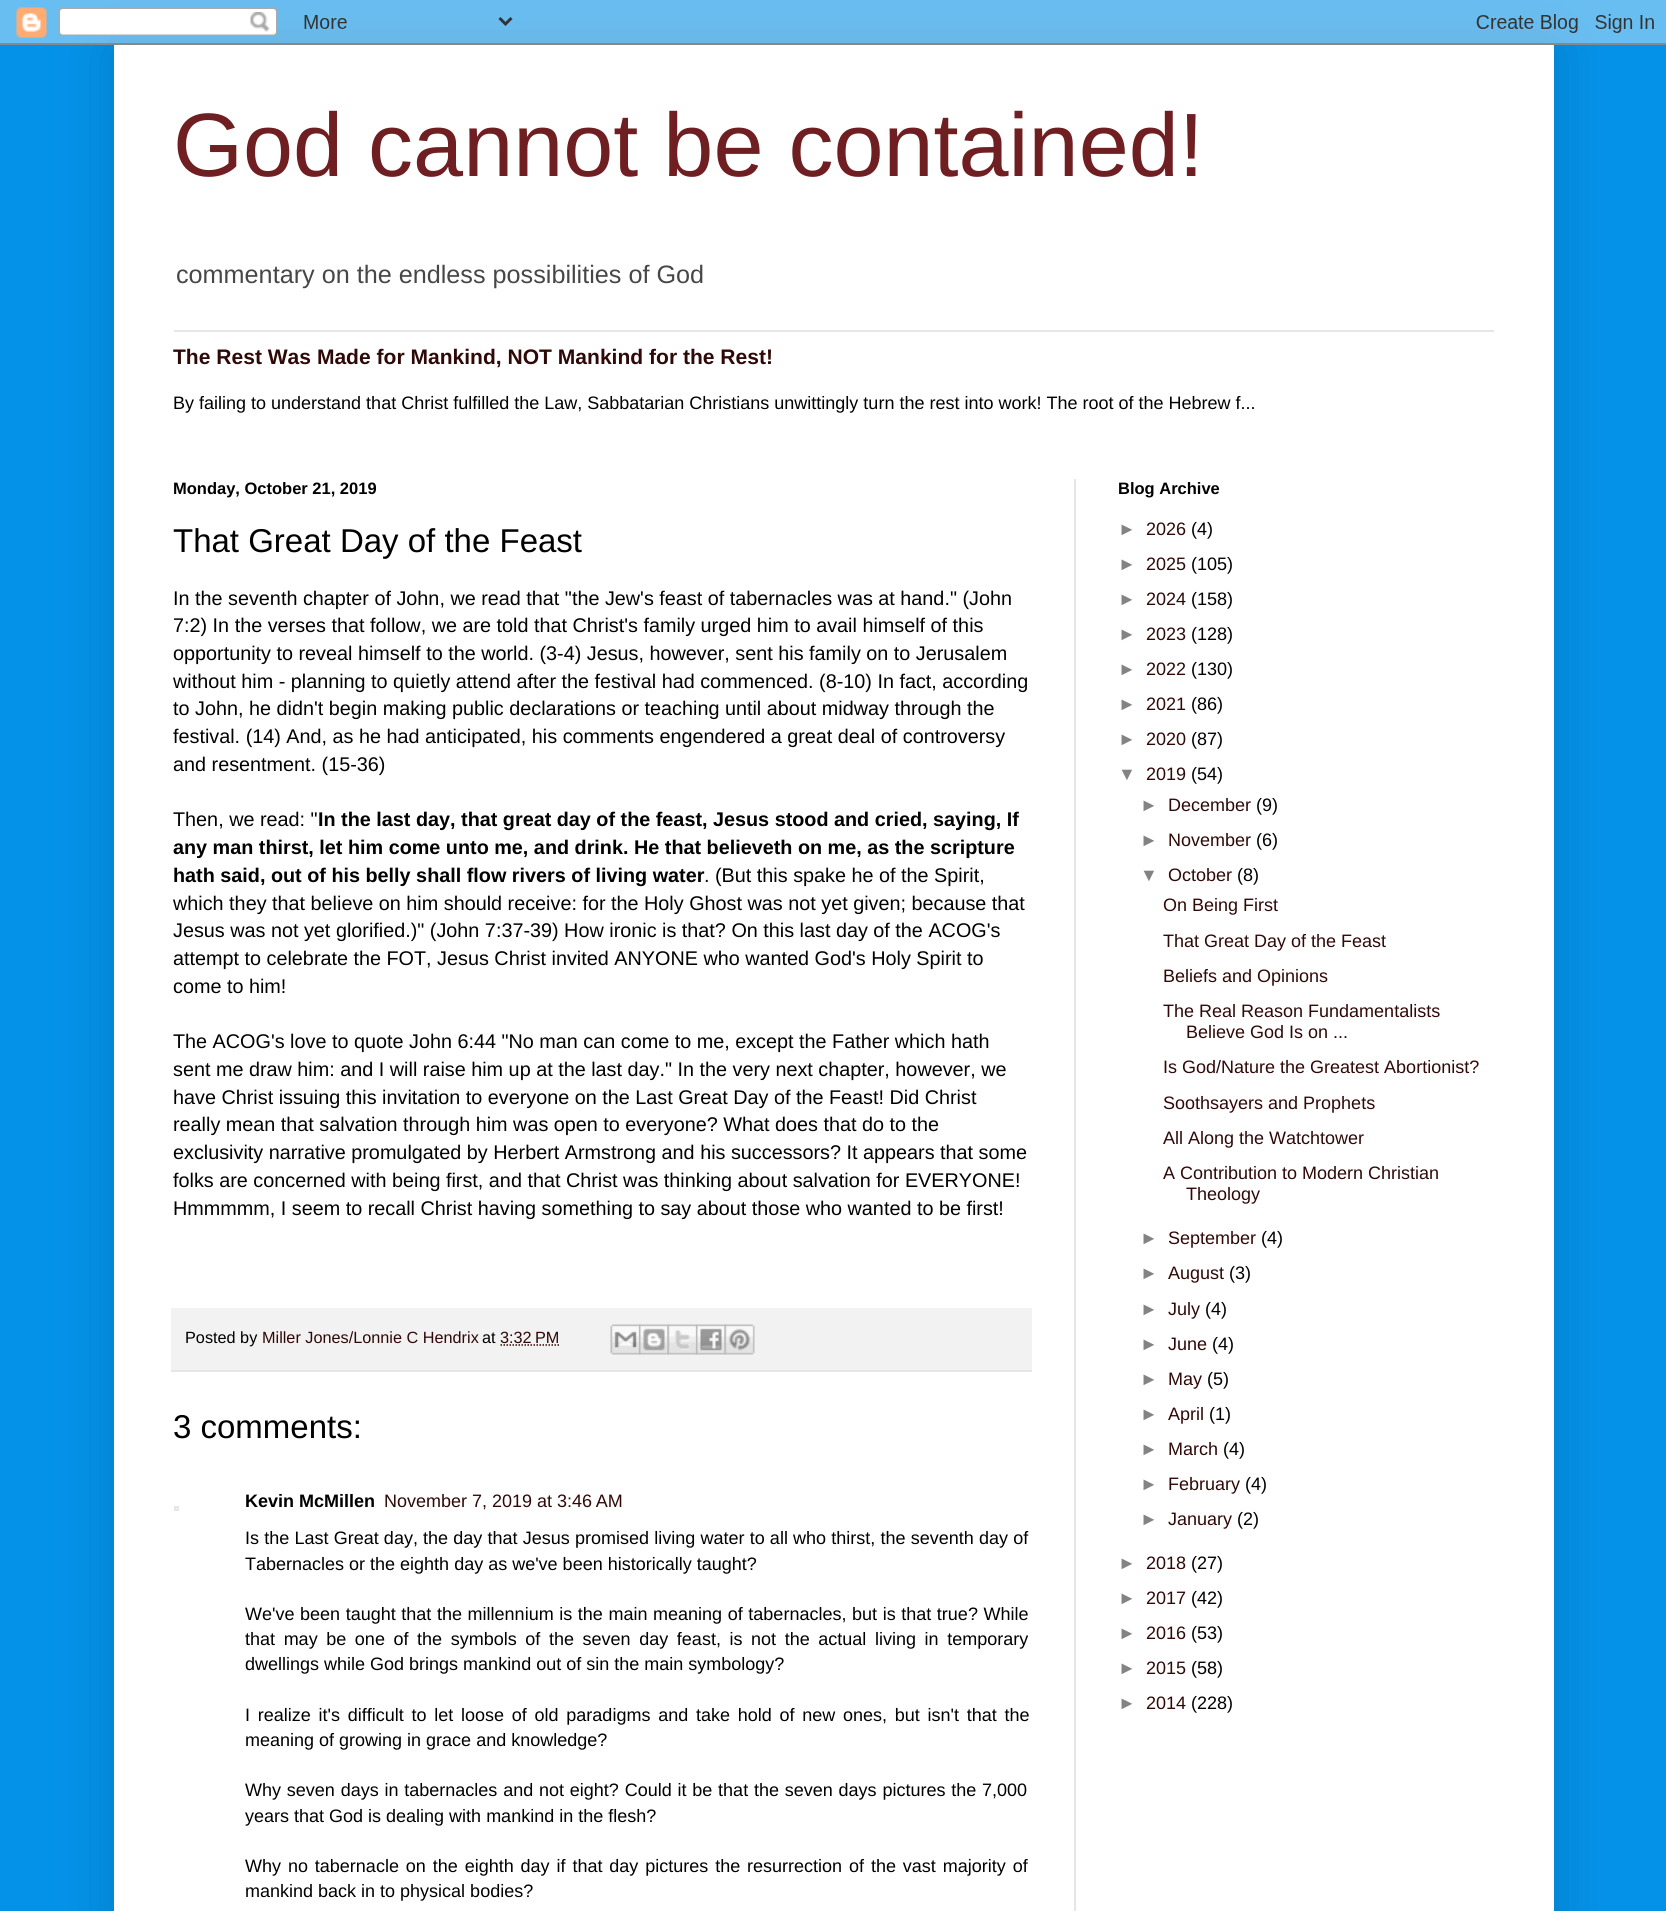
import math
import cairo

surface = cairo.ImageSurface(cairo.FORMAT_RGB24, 1666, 1911)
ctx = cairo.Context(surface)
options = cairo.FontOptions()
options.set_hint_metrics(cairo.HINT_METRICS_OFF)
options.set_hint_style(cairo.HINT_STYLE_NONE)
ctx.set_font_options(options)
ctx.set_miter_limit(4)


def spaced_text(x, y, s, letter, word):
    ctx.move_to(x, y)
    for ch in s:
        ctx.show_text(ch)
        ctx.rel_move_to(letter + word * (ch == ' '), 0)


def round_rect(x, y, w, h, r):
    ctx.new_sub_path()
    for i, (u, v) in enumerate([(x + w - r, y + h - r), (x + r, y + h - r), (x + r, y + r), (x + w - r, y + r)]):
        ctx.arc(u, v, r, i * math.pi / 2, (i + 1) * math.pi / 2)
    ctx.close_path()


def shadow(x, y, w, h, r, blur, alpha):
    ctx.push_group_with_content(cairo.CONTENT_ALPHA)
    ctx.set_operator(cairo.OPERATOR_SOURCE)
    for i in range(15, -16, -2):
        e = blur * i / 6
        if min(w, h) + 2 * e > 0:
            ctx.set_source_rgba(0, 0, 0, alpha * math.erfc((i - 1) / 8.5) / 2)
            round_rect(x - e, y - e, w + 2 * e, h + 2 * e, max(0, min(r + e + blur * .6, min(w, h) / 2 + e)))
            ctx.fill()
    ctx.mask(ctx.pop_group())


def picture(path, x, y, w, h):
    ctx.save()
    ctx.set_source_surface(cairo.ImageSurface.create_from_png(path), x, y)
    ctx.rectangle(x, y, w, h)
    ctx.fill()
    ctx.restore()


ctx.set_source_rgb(0.016, 0.573, 0.91)
ctx.paint()
ctx.set_source_rgb(0, 0, 0)
shadow(114, 45, 1440, 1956, 0, 30, 0.15)
picture("img1.png", 0, 0, 1666, 45)
ctx.set_source_rgb(1, 1, 1)
ctx.rectangle(114, 45, 1440, 1866)
ctx.fill()
ctx.select_font_face("Liberation Sans")
ctx.set_font_size(90)
ctx.set_source_rgb(0.435, 0.118, 0.129)
ctx.move_to(173, 176)
ctx.show_text("God cannot be contained!")
ctx.set_font_size(25.2)
ctx.set_source_rgb(0.278, 0.278, 0.278)
ctx.move_to(176, 283)
ctx.show_text("commentary on the endless possibilities of God")
ctx.set_source_rgb(0.902, 0.902, 0.902)
ctx.rectangle(174, 330, 1320, 2)
ctx.fill()
ctx.select_font_face("Liberation Sans", cairo.FONT_SLANT_NORMAL, cairo.FONT_WEIGHT_BOLD)
ctx.set_font_size(21.05)
ctx.set_source_rgb(0.184, 0.039, 0.031)
ctx.move_to(173, 364)
ctx.show_text("The Rest Was Made for Mankind, NOT Mankind for the Rest!")
ctx.select_font_face("Liberation Sans")
ctx.set_font_size(18)
ctx.set_source_rgb(0, 0, 0)
ctx.move_to(173, 409)
ctx.show_text("By failing to understand that Christ fulfilled the Law, Sabbatarian Christians unwittingly turn the rest into work! The root of the Hebrew f...")
ctx.set_source_rgb(0.902, 0.902, 0.902)
ctx.rectangle(1074, 479, 2, 1432)
ctx.fill()
ctx.select_font_face("Liberation Sans", cairo.FONT_SLANT_NORMAL, cairo.FONT_WEIGHT_BOLD)
ctx.set_font_size(16.5)
ctx.set_source_rgb(0, 0, 0)
ctx.move_to(173, 494)
ctx.show_text("Monday, October 21, 2019")
ctx.select_font_face("Liberation Sans")
ctx.set_font_size(33)
ctx.move_to(173, 552)
ctx.show_text("That Great Day of the Feast")
ctx.set_font_size(19.8)
ctx.move_to(173, 605)
ctx.show_text("In the seventh chapter of John, we read that \"the Jew's feast of tabernacles was at hand.\" (John")
ctx.move_to(173, 632)
ctx.show_text("7:2) In the verses that follow, we are told that Christ's family urged him to avail himself of this")
ctx.move_to(173, 660)
ctx.show_text("opportunity to reveal himself to the world. (3-4) Jesus, however, sent his family on to Jerusalem")
ctx.move_to(173, 688)
ctx.show_text("without him - planning to quietly attend after the festival had commenced. (8-10) In fact, according")
ctx.move_to(173, 715)
ctx.show_text("to John, he didn't begin making public declarations or teaching until about midway through the")
ctx.move_to(173, 743)
ctx.show_text("festival. (14) And, as he had anticipated, his comments engendered a great deal of controversy")
ctx.move_to(173, 771)
ctx.show_text("and resentment. (15-36)")
ctx.move_to(173, 826)
ctx.show_text("Then, we read: \"")
ctx.select_font_face("Liberation Sans", cairo.FONT_SLANT_NORMAL, cairo.FONT_WEIGHT_BOLD)
ctx.move_to(318, 826)
ctx.show_text("In the last day, that great day of the feast, Jesus stood and cried, saying, If")
ctx.move_to(173, 854)
ctx.show_text("any man thirst, let him come unto me, and drink. He that believeth on me, as the scripture")
ctx.move_to(173, 882)
ctx.show_text("hath said, out of his belly shall flow rivers of living water")
ctx.select_font_face("Liberation Sans")
ctx.move_to(704, 882)
ctx.show_text(". (But this spake he of the Spirit,")
ctx.move_to(173, 910)
ctx.show_text("which they that believe on him should receive: for the Holy Ghost was not yet given; because that")
ctx.move_to(173, 937)
ctx.show_text("Jesus was not yet glorified.)\" (John 7:37-39) How ironic is that? On this last day of the ACOG's")
ctx.move_to(173, 965)
ctx.show_text("attempt to celebrate the FOT, Jesus Christ invited ANYONE who wanted God's Holy Spirit to")
ctx.move_to(173, 993)
ctx.show_text("come to him!")
ctx.move_to(173, 1048)
ctx.show_text("The ACOG's love to quote John 6:44 \"No man can come to me, except the Father which hath")
ctx.move_to(173, 1076)
ctx.show_text("sent me draw him: and I will raise him up at the last day.\" In the very next chapter, however, we")
ctx.move_to(173, 1104)
ctx.show_text("have Christ issuing this invitation to everyone on the Last Great Day of the Feast! Did Christ")
ctx.move_to(173, 1131)
ctx.show_text("really mean that salvation through him was open to everyone? What does that do to the")
ctx.move_to(173, 1159)
ctx.show_text("exclusivity narrative promulgated by Herbert Armstrong and his successors? It appears that some")
ctx.move_to(173, 1187)
ctx.show_text("folks are concerned with being first, and that Christ was thinking about salvation for EVERYONE!")
ctx.move_to(173, 1215)
ctx.show_text("Hmmmmm, I seem to recall Christ having something to say about those who wanted to be first!")
ctx.set_source_rgb(0.949, 0.949, 0.949)
ctx.rectangle(171, 1308, 861, 62)
ctx.fill()
ctx.set_source_rgb(0.902, 0.902, 0.902)
ctx.rectangle(171, 1370, 861, 2)
ctx.fill()
ctx.set_font_size(16.25)
ctx.set_source_rgb(0, 0, 0)
ctx.move_to(185, 1343)
ctx.show_text("Posted by")
ctx.set_source_rgb(0.184, 0.039, 0.031)
ctx.move_to(262, 1343)
ctx.show_text("Miller Jones/Lonnie C Hendrix")
ctx.set_source_rgb(0, 0, 0)
ctx.move_to(482, 1343)
ctx.show_text("at")
ctx.set_source_rgb(0.184, 0.039, 0.031)
ctx.move_to(500, 1343)
ctx.show_text("3:32 PM")
ctx.new_path()
ctx.move_to(500.5, 1345)
ctx.line_to(559.5, 1345)
ctx.set_line_width(1.5)
ctx.set_dash([1.5, 1.5])
ctx.stroke()
picture("img2.png", 610, 1324, 31, 31)
picture("img3.png", 639, 1324, 30, 31)
picture("img4.png", 667, 1324, 31, 31)
picture("img5.png", 696, 1324, 30, 31)
picture("img6.png", 724, 1324, 31, 31)
ctx.set_font_size(33)
ctx.set_source_rgb(0, 0, 0)
ctx.move_to(173, 1438)
ctx.show_text("3 comments:")
ctx.rectangle(175, 1507, 3, 3)
ctx.set_source_rgb(0.902, 0.902, 0.902)
ctx.set_line_width(2)
ctx.set_dash([])
ctx.stroke()
ctx.select_font_face("Liberation Sans", cairo.FONT_SLANT_NORMAL, cairo.FONT_WEIGHT_BOLD)
ctx.set_font_size(18)
ctx.set_source_rgb(0, 0, 0)
ctx.move_to(245, 1507)
ctx.show_text("Kevin McMillen")
ctx.select_font_face("Liberation Sans")
ctx.set_source_rgb(0.184, 0.039, 0.031)
ctx.move_to(384, 1507)
ctx.show_text("November 7, 2019 at 3:46 AM")
ctx.set_source_rgb(0, 0, 0)
spaced_text(245, 1544, "Is the Last Great day, the day that Jesus promised living water to all who thirst, the seventh day of", 0, 0.2)
ctx.move_to(245, 1570)
ctx.show_text("Tabernacles or the eighth day as we've been historically taught?")
spaced_text(245, 1620, "We've been taught that the millennium is the main meaning of tabernacles, but is that true? While", 0, 0.6)
spaced_text(245, 1645, "that may be one of the symbols of the seven day feast, is not the actual living in temporary", 0, 3.6)
ctx.move_to(245, 1670)
ctx.show_text("dwellings while God brings mankind out of sin the main symbology?")
spaced_text(245, 1721, "I realize it's difficult to let loose of old paradigms and take hold of new ones, but isn't that the", 0, 2.75)
ctx.move_to(245, 1746)
ctx.show_text("meaning of growing in grace and knowledge?")
spaced_text(245, 1796, "Why seven days in tabernacles and not eight? Could it be that the seven days pictures the 7,000", 0, 0.8)
ctx.move_to(245, 1822)
ctx.show_text("years that God is dealing with mankind in the flesh?")
spaced_text(245, 1872, "Why no tabernacle on the eighth day if that day pictures the resurrection of the vast majority of", 0, 1.9)
ctx.move_to(245, 1897)
ctx.show_text("mankind back in to physical bodies?")
ctx.select_font_face("Liberation Sans", cairo.FONT_SLANT_NORMAL, cairo.FONT_WEIGHT_BOLD)
ctx.set_font_size(16.5)
ctx.move_to(1118, 494)
ctx.show_text("Blog Archive")
ctx.select_font_face("Liberation Sans")
ctx.set_font_size(18)
ctx.set_source_rgb(0.514, 0.514, 0.514)
ctx.move_to(1118, 535)
ctx.show_text("►")
ctx.set_source_rgb(0.184, 0.039, 0.031)
ctx.move_to(1146, 535)
ctx.show_text("2026")
ctx.set_source_rgb(0, 0, 0)
ctx.move_to(1191, 535)
ctx.show_text("(4)")
ctx.set_source_rgb(0.514, 0.514, 0.514)
ctx.move_to(1118, 570)
ctx.show_text("►")
ctx.set_source_rgb(0.184, 0.039, 0.031)
ctx.move_to(1146, 570)
ctx.show_text("2025")
ctx.set_source_rgb(0, 0, 0)
ctx.move_to(1191, 570)
ctx.show_text("(105)")
ctx.set_source_rgb(0.514, 0.514, 0.514)
ctx.move_to(1118, 605)
ctx.show_text("►")
ctx.set_source_rgb(0.184, 0.039, 0.031)
ctx.move_to(1146, 605)
ctx.show_text("2024")
ctx.set_source_rgb(0, 0, 0)
ctx.move_to(1191, 605)
ctx.show_text("(158)")
ctx.set_source_rgb(0.514, 0.514, 0.514)
ctx.move_to(1118, 640)
ctx.show_text("►")
ctx.set_source_rgb(0.184, 0.039, 0.031)
ctx.move_to(1146, 640)
ctx.show_text("2023")
ctx.set_source_rgb(0, 0, 0)
ctx.move_to(1191, 640)
ctx.show_text("(128)")
ctx.set_source_rgb(0.514, 0.514, 0.514)
ctx.move_to(1118, 675)
ctx.show_text("►")
ctx.set_source_rgb(0.184, 0.039, 0.031)
ctx.move_to(1146, 675)
ctx.show_text("2022")
ctx.set_source_rgb(0, 0, 0)
ctx.move_to(1191, 675)
ctx.show_text("(130)")
ctx.set_source_rgb(0.514, 0.514, 0.514)
ctx.move_to(1118, 710)
ctx.show_text("►")
ctx.set_source_rgb(0.184, 0.039, 0.031)
ctx.move_to(1146, 710)
ctx.show_text("2021")
ctx.set_source_rgb(0, 0, 0)
ctx.move_to(1191, 710)
ctx.show_text("(86)")
ctx.set_source_rgb(0.514, 0.514, 0.514)
ctx.move_to(1118, 745)
ctx.show_text("►")
ctx.set_source_rgb(0.184, 0.039, 0.031)
ctx.move_to(1146, 745)
ctx.show_text("2020")
ctx.set_source_rgb(0, 0, 0)
ctx.move_to(1191, 745)
ctx.show_text("(87)")
ctx.set_source_rgb(0.514, 0.514, 0.514)
ctx.move_to(1118, 780)
ctx.show_text("▼")
ctx.set_source_rgb(0.184, 0.039, 0.031)
ctx.move_to(1146, 780)
ctx.show_text("2019")
ctx.set_source_rgb(0, 0, 0)
ctx.move_to(1191, 780)
ctx.show_text("(54)")
ctx.set_source_rgb(0.514, 0.514, 0.514)
ctx.move_to(1140, 811)
ctx.show_text("►")
ctx.set_source_rgb(0.184, 0.039, 0.031)
ctx.move_to(1168, 811)
ctx.show_text("December")
ctx.set_source_rgb(0, 0, 0)
ctx.move_to(1256, 811)
ctx.show_text("(9)")
ctx.set_source_rgb(0.514, 0.514, 0.514)
ctx.move_to(1140, 846)
ctx.show_text("►")
ctx.set_source_rgb(0.184, 0.039, 0.031)
ctx.move_to(1168, 846)
ctx.show_text("November")
ctx.set_source_rgb(0, 0, 0)
ctx.move_to(1256, 846)
ctx.show_text("(6)")
ctx.set_source_rgb(0.514, 0.514, 0.514)
ctx.move_to(1140, 881)
ctx.show_text("▼")
ctx.set_source_rgb(0.184, 0.039, 0.031)
ctx.move_to(1168, 881)
ctx.show_text("October")
ctx.set_source_rgb(0, 0, 0)
ctx.move_to(1237, 881)
ctx.show_text("(8)")
ctx.set_source_rgb(0.184, 0.039, 0.031)
ctx.move_to(1163, 911)
ctx.show_text("On Being First")
ctx.move_to(1163, 947)
ctx.show_text("That Great Day of the Feast")
ctx.move_to(1163, 982)
ctx.show_text("Beliefs and Opinions")
ctx.move_to(1163, 1017)
ctx.show_text("The Real Reason Fundamentalists")
ctx.move_to(1186, 1038)
ctx.show_text("Believe God Is on ...")
ctx.move_to(1163, 1073)
ctx.show_text("Is God/Nature the Greatest Abortionist?")
ctx.move_to(1163, 1109)
ctx.show_text("Soothsayers and Prophets")
ctx.move_to(1163, 1144)
ctx.show_text("All Along the Watchtower")
ctx.move_to(1163, 1179)
ctx.show_text("A Contribution to Modern Christian")
ctx.move_to(1186, 1200)
ctx.show_text("Theology")
ctx.set_source_rgb(0.514, 0.514, 0.514)
ctx.move_to(1140, 1244)
ctx.show_text("►")
ctx.set_source_rgb(0.184, 0.039, 0.031)
ctx.move_to(1168, 1244)
ctx.show_text("September")
ctx.set_source_rgb(0, 0, 0)
ctx.move_to(1261, 1244)
ctx.show_text("(4)")
ctx.set_source_rgb(0.514, 0.514, 0.514)
ctx.move_to(1140, 1279)
ctx.show_text("►")
ctx.set_source_rgb(0.184, 0.039, 0.031)
ctx.move_to(1168, 1279)
ctx.show_text("August")
ctx.set_source_rgb(0, 0, 0)
ctx.move_to(1229, 1279)
ctx.show_text("(3)")
ctx.set_source_rgb(0.514, 0.514, 0.514)
ctx.move_to(1140, 1315)
ctx.show_text("►")
ctx.set_source_rgb(0.184, 0.039, 0.031)
ctx.move_to(1168, 1315)
ctx.show_text("July")
ctx.set_source_rgb(0, 0, 0)
ctx.move_to(1205, 1315)
ctx.show_text("(4)")
ctx.set_source_rgb(0.514, 0.514, 0.514)
ctx.move_to(1140, 1350)
ctx.show_text("►")
ctx.set_source_rgb(0.184, 0.039, 0.031)
ctx.move_to(1168, 1350)
ctx.show_text("June")
ctx.set_source_rgb(0, 0, 0)
ctx.move_to(1212, 1350)
ctx.show_text("(4)")
ctx.set_source_rgb(0.514, 0.514, 0.514)
ctx.move_to(1140, 1385)
ctx.show_text("►")
ctx.set_source_rgb(0.184, 0.039, 0.031)
ctx.move_to(1168, 1385)
ctx.show_text("May")
ctx.set_source_rgb(0, 0, 0)
ctx.move_to(1207, 1385)
ctx.show_text("(5)")
ctx.set_source_rgb(0.514, 0.514, 0.514)
ctx.move_to(1140, 1420)
ctx.show_text("►")
ctx.set_source_rgb(0.184, 0.039, 0.031)
ctx.move_to(1168, 1420)
ctx.show_text("April")
ctx.set_source_rgb(0, 0, 0)
ctx.move_to(1209, 1420)
ctx.show_text("(1)")
ctx.set_source_rgb(0.514, 0.514, 0.514)
ctx.move_to(1140, 1455)
ctx.show_text("►")
ctx.set_source_rgb(0.184, 0.039, 0.031)
ctx.move_to(1168, 1455)
ctx.show_text("March")
ctx.set_source_rgb(0, 0, 0)
ctx.move_to(1223, 1455)
ctx.show_text("(4)")
ctx.set_source_rgb(0.514, 0.514, 0.514)
ctx.move_to(1140, 1490)
ctx.show_text("►")
ctx.set_source_rgb(0.184, 0.039, 0.031)
ctx.move_to(1168, 1490)
ctx.show_text("February")
ctx.set_source_rgb(0, 0, 0)
ctx.move_to(1245, 1490)
ctx.show_text("(4)")
ctx.set_source_rgb(0.514, 0.514, 0.514)
ctx.move_to(1140, 1525)
ctx.show_text("►")
ctx.set_source_rgb(0.184, 0.039, 0.031)
ctx.move_to(1168, 1525)
ctx.show_text("January")
ctx.set_source_rgb(0, 0, 0)
ctx.move_to(1237, 1525)
ctx.show_text("(2)")
ctx.set_source_rgb(0.514, 0.514, 0.514)
ctx.move_to(1118, 1569)
ctx.show_text("►")
ctx.set_source_rgb(0.184, 0.039, 0.031)
ctx.move_to(1146, 1569)
ctx.show_text("2018")
ctx.set_source_rgb(0, 0, 0)
ctx.move_to(1191, 1569)
ctx.show_text("(27)")
ctx.set_source_rgb(0.514, 0.514, 0.514)
ctx.move_to(1118, 1604)
ctx.show_text("►")
ctx.set_source_rgb(0.184, 0.039, 0.031)
ctx.move_to(1146, 1604)
ctx.show_text("2017")
ctx.set_source_rgb(0, 0, 0)
ctx.move_to(1191, 1604)
ctx.show_text("(42)")
ctx.set_source_rgb(0.514, 0.514, 0.514)
ctx.move_to(1118, 1639)
ctx.show_text("►")
ctx.set_source_rgb(0.184, 0.039, 0.031)
ctx.move_to(1146, 1639)
ctx.show_text("2016")
ctx.set_source_rgb(0, 0, 0)
ctx.move_to(1191, 1639)
ctx.show_text("(53)")
ctx.set_source_rgb(0.514, 0.514, 0.514)
ctx.move_to(1118, 1674)
ctx.show_text("►")
ctx.set_source_rgb(0.184, 0.039, 0.031)
ctx.move_to(1146, 1674)
ctx.show_text("2015")
ctx.set_source_rgb(0, 0, 0)
ctx.move_to(1191, 1674)
ctx.show_text("(58)")
ctx.set_source_rgb(0.514, 0.514, 0.514)
ctx.move_to(1118, 1709)
ctx.show_text("►")
ctx.set_source_rgb(0.184, 0.039, 0.031)
ctx.move_to(1146, 1709)
ctx.show_text("2014")
ctx.set_source_rgb(0, 0, 0)
ctx.move_to(1191, 1709)
ctx.show_text("(228)")
surface.write_to_png("page.png")
